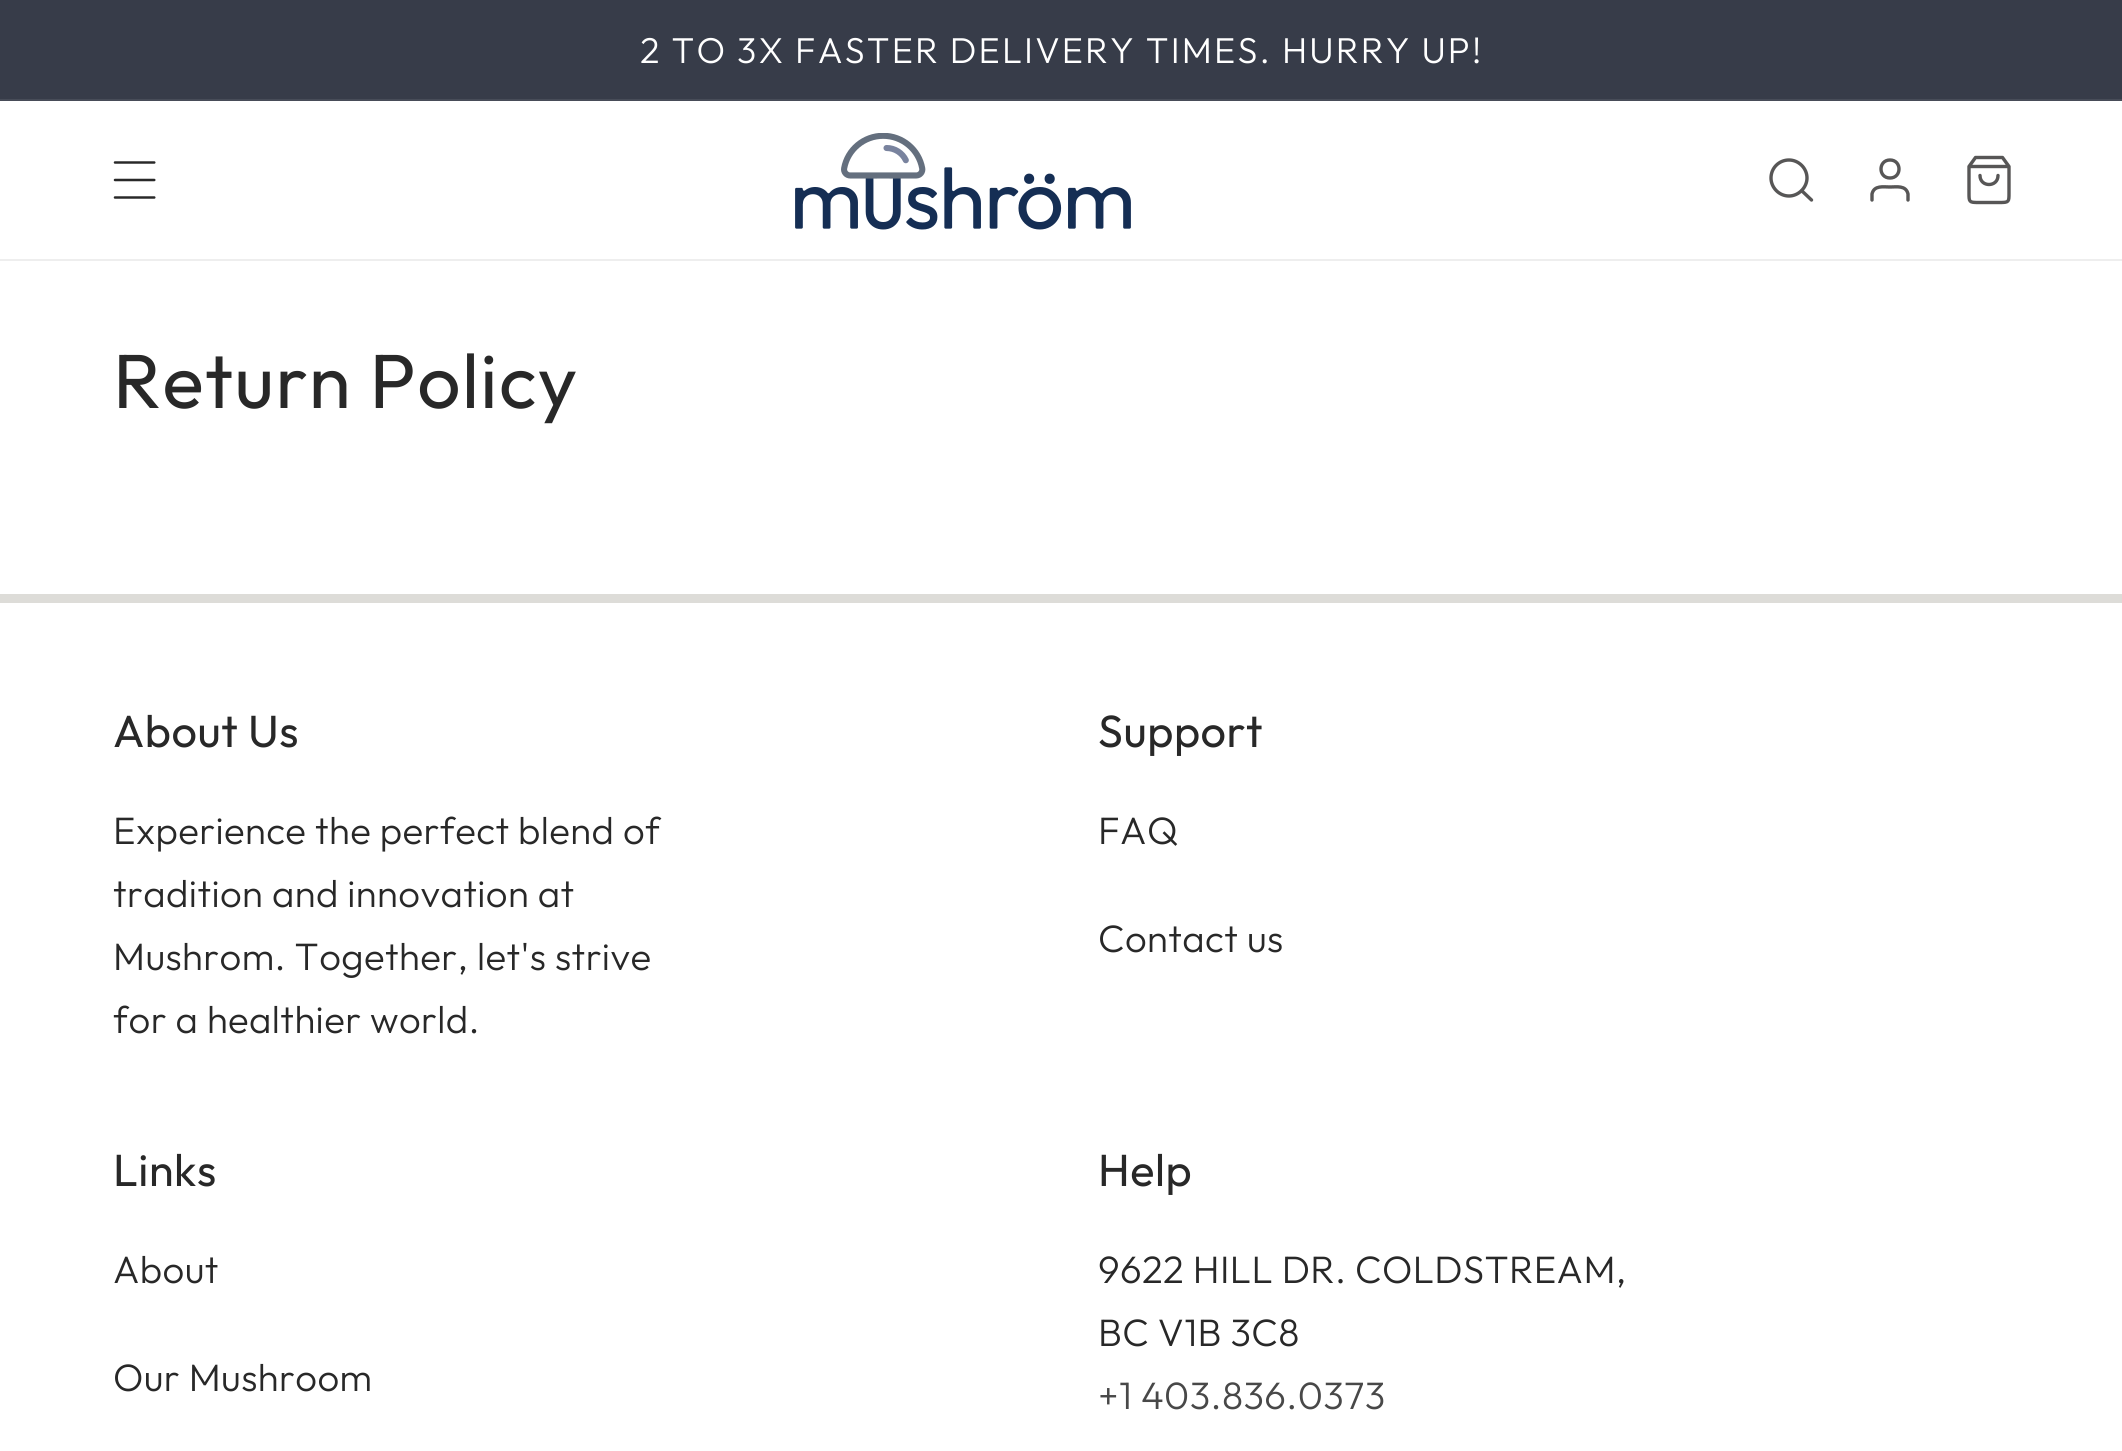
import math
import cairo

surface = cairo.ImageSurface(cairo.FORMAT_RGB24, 2122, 1451)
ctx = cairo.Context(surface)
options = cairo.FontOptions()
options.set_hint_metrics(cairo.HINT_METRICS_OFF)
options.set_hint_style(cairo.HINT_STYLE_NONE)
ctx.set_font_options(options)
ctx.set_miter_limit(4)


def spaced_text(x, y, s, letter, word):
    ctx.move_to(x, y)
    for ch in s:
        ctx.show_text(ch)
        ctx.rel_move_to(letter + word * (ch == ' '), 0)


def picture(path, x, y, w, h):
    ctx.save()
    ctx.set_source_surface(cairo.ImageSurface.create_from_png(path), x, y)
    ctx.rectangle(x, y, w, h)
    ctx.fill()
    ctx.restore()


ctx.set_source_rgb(1, 1, 1)
ctx.paint()
ctx.set_source_rgb(0.216, 0.235, 0.286)
ctx.rectangle(0, 0, 2122, 99)
ctx.fill()
ctx.set_source_rgb(0.278, 0.298, 0.345)
ctx.rectangle(0, 99, 2122, 2)
ctx.fill()
ctx.select_font_face("Outfit Light")
ctx.set_font_size(36)
ctx.set_source_rgb(1, 1, 1)
spaced_text(640, 63, "2 TO 3X FASTER DELIVERY TIMES. HURRY UP!", 2.15, 0)
ctx.set_source_rgb(0.933, 0.933, 0.933)
ctx.rectangle(0, 259, 2122, 2)
ctx.fill()
picture("img1.png", 113, 161, 43, 38)
picture("img2.png", 795, 133, 336, 97)
ctx.new_path()
ctx.move_to(1789, 196)
ctx.curve_to(1798.5, 196, 1807, 187.5, 1807, 178)
ctx.curve_to(1807, 168, 1798.5, 160, 1789, 160)
ctx.curve_to(1779, 160, 1771, 168, 1771, 178)
ctx.curve_to(1771, 187.5, 1779, 196, 1789, 196)
ctx.close_path()
ctx.move_to(1811.5, 200)
ctx.line_to(1801.5, 190.5)
ctx.set_source_rgb(0.341, 0.337, 0.337)
ctx.set_line_width(3.4)
ctx.set_line_cap(cairo.LINE_CAP_ROUND)
ctx.set_line_join(cairo.LINE_JOIN_ROUND)
ctx.stroke()
ctx.new_path()
ctx.move_to(1908, 200)
ctx.line_to(1908, 194)
ctx.curve_to(1906, 185, 1896.5, 187, 1890, 187)
ctx.curve_to(1883.5, 187, 1874, 185, 1872, 194)
ctx.line_to(1872, 200)
ctx.move_to(1890, 178)
ctx.curve_to(1902, 178, 1902, 160, 1890, 160)
ctx.curve_to(1878, 160, 1878, 178, 1890, 178)
ctx.close_path()
ctx.stroke()
ctx.new_path()
ctx.move_to(1975.5, 157.5)
ctx.line_to(1969, 166.5)
ctx.line_to(1969, 193)
ctx.curve_to(1969, 202, 1969, 202.5, 1978.5, 202.5)
ctx.line_to(1999.5, 202.5)
ctx.curve_to(2009, 202.5, 2009, 202, 2009, 193)
ctx.line_to(2009, 166.5)
ctx.line_to(2002.5, 157.5)
ctx.close_path()
ctx.move_to(1969, 166.5)
ctx.line_to(2009, 166.5)
ctx.move_to(1998, 175.5)
ctx.curve_to(1998, 187.5, 1980, 187.5, 1980, 175.5)
ctx.stroke()
ctx.select_font_face("Outfit Thin")
ctx.set_font_size(76.5)
ctx.set_source_rgb(0.157, 0.157, 0.157)
spaced_text(113, 408, "Return Policy", 1.4, 0)
ctx.set_source_rgb(0.867, 0.863, 0.847)
ctx.rectangle(0, 594, 2122, 9)
ctx.fill()
ctx.set_font_size(45)
ctx.set_source_rgb(0.157, 0.157, 0.157)
spaced_text(113, 747, "About Us", 0.5, 0)
ctx.select_font_face("Outfit Light")
ctx.set_font_size(38.25)
spaced_text(113, 844, "Experience the perfect blend of", 0.4, 0)
spaced_text(113, 907, "tradition and innovation at", 0.4, 0)
spaced_text(113, 970, "Mushrom. Together, let's strive", 0.4, 0)
spaced_text(113, 1033, "for a healthier world.", 0.4, 0)
ctx.select_font_face("Outfit Thin")
ctx.set_font_size(45)
spaced_text(1098, 747, "Support", 0.5, 0)
ctx.select_font_face("Outfit Light")
ctx.set_font_size(38.25)
spaced_text(1098, 844, "FAQ", 0.4, 0)
spaced_text(1098, 952, "Contact us", 0.4, 0)
ctx.select_font_face("Outfit Thin")
ctx.set_font_size(45)
spaced_text(113, 1186, "Links", 0.5, 0)
ctx.select_font_face("Outfit Light")
ctx.set_font_size(38.25)
spaced_text(113, 1283, "About", 0.4, 0)
spaced_text(113, 1391, "Our Mushroom", 0.4, 0)
ctx.select_font_face("Outfit Thin")
ctx.set_font_size(45)
spaced_text(1098, 1186, "Help", 0.5, 0)
ctx.select_font_face("Outfit Light")
ctx.set_font_size(38.25)
spaced_text(1098, 1283, "9622 HILL DR. COLDSTREAM,", 0.4, 0)
spaced_text(1098, 1346, "BC V1B 3C8", 0.4, 0)
ctx.set_source_rgb(0.282, 0.282, 0.282)
spaced_text(1098, 1409, "+1 403.836.0373", 0.4, 0)
surface.write_to_png("page.png")
